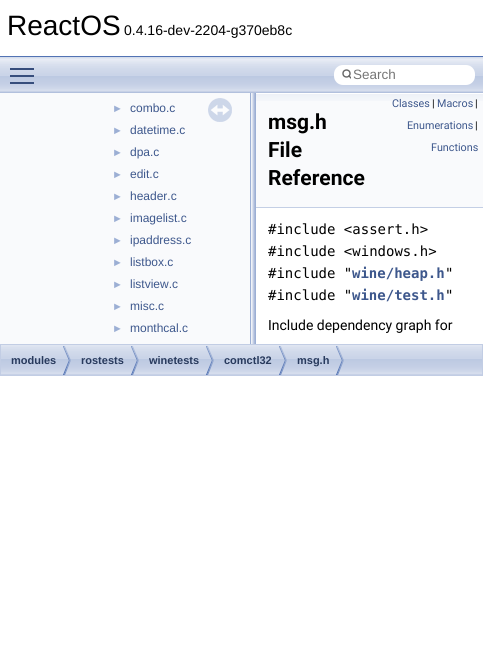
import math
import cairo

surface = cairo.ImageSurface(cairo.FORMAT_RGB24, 483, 664)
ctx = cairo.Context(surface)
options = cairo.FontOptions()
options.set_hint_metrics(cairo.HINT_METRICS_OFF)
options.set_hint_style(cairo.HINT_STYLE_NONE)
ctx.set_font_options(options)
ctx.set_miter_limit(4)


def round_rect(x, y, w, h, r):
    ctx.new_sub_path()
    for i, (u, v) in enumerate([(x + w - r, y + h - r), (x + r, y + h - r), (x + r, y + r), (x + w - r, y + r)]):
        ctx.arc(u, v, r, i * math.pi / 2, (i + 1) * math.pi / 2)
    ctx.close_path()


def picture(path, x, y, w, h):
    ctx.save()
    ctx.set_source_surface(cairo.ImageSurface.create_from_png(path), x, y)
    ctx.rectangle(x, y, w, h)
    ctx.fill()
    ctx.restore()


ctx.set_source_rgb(1, 1, 1)
ctx.paint()
ctx.set_source_rgb(0.325, 0.451, 0.706)
ctx.rectangle(0, 56, 483, 1)
ctx.fill()
ctx.select_font_face("Liberation Sans")
ctx.set_font_size(28)
ctx.set_source_rgb(0, 0, 0)
ctx.move_to(7, 35)
ctx.show_text("ReactOS")
ctx.set_font_size(14)
ctx.move_to(124, 35)
ctx.show_text("0.4.16-dev-2204-g370eb8c")
picture("img1.png", 0, 57, 483, 36)
ctx.set_source_rgb(0.212, 0.302, 0.486)
ctx.rectangle(10, 75, 24, 2)
ctx.fill()
ctx.rectangle(10, 68, 24, 2)
ctx.fill()
ctx.rectangle(10, 82, 24, 2)
ctx.fill()
ctx.set_source_rgb(1, 1, 1)
round_rect(334, 65, 141, 20, 9)
ctx.fill()
ctx.arc(346.5, 73.5, 3.5, 0, 2 * math.pi)
ctx.set_source_rgb(0.396, 0.396, 0.396)
ctx.set_line_width(1.4)
ctx.stroke()
ctx.save()
ctx.rectangle(341, 65, 10, 19)
ctx.clip()
ctx.new_path()
ctx.move_to(349, 76)
ctx.line_to(352, 79)
ctx.set_line_cap(cairo.LINE_CAP_ROUND)
ctx.stroke()
ctx.restore()
ctx.set_font_size(13.5)
ctx.set_source_rgb(0.459, 0.459, 0.459)
ctx.move_to(353, 79)
ctx.show_text("Search")
ctx.set_source_rgb(0.976, 0.98, 0.988)
ctx.rectangle(0, 93, 250, 251)
ctx.fill()
ctx.set_font_size(11)
ctx.set_source_rgb(0.612, 0.686, 0.831)
ctx.move_to(112, 112)
ctx.show_text("►")
ctx.set_font_size(12)
ctx.set_source_rgb(0.239, 0.341, 0.549)
ctx.move_to(130, 112)
ctx.show_text("combo.c")
ctx.set_font_size(11)
ctx.set_source_rgb(0.612, 0.686, 0.831)
ctx.move_to(112, 134)
ctx.show_text("►")
ctx.set_font_size(12)
ctx.set_source_rgb(0.239, 0.341, 0.549)
ctx.move_to(130, 134)
ctx.show_text("datetime.c")
ctx.set_font_size(11)
ctx.set_source_rgb(0.612, 0.686, 0.831)
ctx.move_to(112, 156)
ctx.show_text("►")
ctx.set_font_size(12)
ctx.set_source_rgb(0.239, 0.341, 0.549)
ctx.move_to(130, 156)
ctx.show_text("dpa.c")
ctx.set_font_size(11)
ctx.set_source_rgb(0.612, 0.686, 0.831)
ctx.move_to(112, 178)
ctx.show_text("►")
ctx.set_font_size(12)
ctx.set_source_rgb(0.239, 0.341, 0.549)
ctx.move_to(130, 178)
ctx.show_text("edit.c")
ctx.set_font_size(11)
ctx.set_source_rgb(0.612, 0.686, 0.831)
ctx.move_to(112, 200)
ctx.show_text("►")
ctx.set_font_size(12)
ctx.set_source_rgb(0.239, 0.341, 0.549)
ctx.move_to(130, 200)
ctx.show_text("header.c")
ctx.set_font_size(11)
ctx.set_source_rgb(0.612, 0.686, 0.831)
ctx.move_to(112, 222)
ctx.show_text("►")
ctx.set_font_size(12)
ctx.set_source_rgb(0.239, 0.341, 0.549)
ctx.move_to(130, 222)
ctx.show_text("imagelist.c")
ctx.set_font_size(11)
ctx.set_source_rgb(0.612, 0.686, 0.831)
ctx.move_to(112, 244)
ctx.show_text("►")
ctx.set_font_size(12)
ctx.set_source_rgb(0.239, 0.341, 0.549)
ctx.move_to(130, 244)
ctx.show_text("ipaddress.c")
ctx.set_font_size(11)
ctx.set_source_rgb(0.612, 0.686, 0.831)
ctx.move_to(112, 266)
ctx.show_text("►")
ctx.set_font_size(12)
ctx.set_source_rgb(0.239, 0.341, 0.549)
ctx.move_to(130, 266)
ctx.show_text("listbox.c")
ctx.set_font_size(11)
ctx.set_source_rgb(0.612, 0.686, 0.831)
ctx.move_to(112, 288)
ctx.show_text("►")
ctx.set_font_size(12)
ctx.set_source_rgb(0.239, 0.341, 0.549)
ctx.move_to(130, 288)
ctx.show_text("listview.c")
ctx.set_font_size(11)
ctx.set_source_rgb(0.612, 0.686, 0.831)
ctx.move_to(112, 310)
ctx.show_text("►")
ctx.set_font_size(12)
ctx.set_source_rgb(0.239, 0.341, 0.549)
ctx.move_to(130, 310)
ctx.show_text("misc.c")
ctx.set_font_size(11)
ctx.set_source_rgb(0.612, 0.686, 0.831)
ctx.move_to(112, 332)
ctx.show_text("►")
ctx.set_font_size(12)
ctx.set_source_rgb(0.239, 0.341, 0.549)
ctx.move_to(130, 332)
ctx.show_text("monthcal.c")
picture("img2.png", 208, 98, 24, 24)
picture("img3.png", 250, 93, 6, 251)
ctx.set_source_rgb(0.976, 0.98, 0.988)
ctx.rectangle(256, 101, 227, 106)
ctx.fill()
picture("img4.png", 256, 93, 227, 8)
ctx.set_source_rgb(0.769, 0.812, 0.898)
ctx.rectangle(256, 207, 227, 1)
ctx.fill()
ctx.select_font_face("Roboto", cairo.FONT_SLANT_NORMAL, cairo.FONT_WEIGHT_BOLD)
ctx.set_font_size(21)
ctx.set_source_rgb(0, 0, 0)
ctx.move_to(268, 129)
ctx.show_text("msg.h")
ctx.move_to(268, 157)
ctx.show_text("File")
ctx.move_to(268, 185)
ctx.show_text("Reference")
ctx.select_font_face("Roboto")
ctx.set_font_size(10.75)
ctx.set_source_rgb(0.239, 0.341, 0.549)
ctx.move_to(392, 107)
ctx.show_text("Classes")
ctx.set_source_rgb(0, 0, 0)
ctx.move_to(432, 107)
ctx.show_text("|")
ctx.set_source_rgb(0.239, 0.341, 0.549)
ctx.move_to(437, 107)
ctx.show_text("Macros")
ctx.set_source_rgb(0, 0, 0)
ctx.move_to(475, 107)
ctx.show_text("|")
ctx.set_source_rgb(0.239, 0.341, 0.549)
ctx.move_to(407, 129)
ctx.show_text("Enumerations")
ctx.set_source_rgb(0, 0, 0)
ctx.move_to(475, 129)
ctx.show_text("|")
ctx.set_source_rgb(0.239, 0.341, 0.549)
ctx.move_to(431, 151)
ctx.show_text("Functions")
ctx.select_font_face("DejaVu Sans Mono")
ctx.set_font_size(14)
ctx.set_source_rgb(0, 0, 0)
ctx.move_to(268, 234)
ctx.show_text("#include <assert.h>")
ctx.move_to(268, 256)
ctx.show_text("#include <windows.h>")
ctx.move_to(268, 278)
ctx.show_text("#include \"")
ctx.select_font_face("DejaVu Sans Mono", cairo.FONT_SLANT_NORMAL, cairo.FONT_WEIGHT_BOLD)
ctx.set_source_rgb(0.239, 0.341, 0.549)
ctx.move_to(352, 278)
ctx.show_text("wine/heap.h")
ctx.select_font_face("DejaVu Sans Mono")
ctx.set_source_rgb(0, 0, 0)
ctx.move_to(445, 278)
ctx.show_text("\"")
ctx.move_to(268, 300)
ctx.show_text("#include \"")
ctx.select_font_face("DejaVu Sans Mono", cairo.FONT_SLANT_NORMAL, cairo.FONT_WEIGHT_BOLD)
ctx.set_source_rgb(0.239, 0.341, 0.549)
ctx.move_to(352, 300)
ctx.show_text("wine/test.h")
ctx.select_font_face("DejaVu Sans Mono")
ctx.set_source_rgb(0, 0, 0)
ctx.move_to(445, 300)
ctx.show_text("\"")
ctx.select_font_face("Roboto")
ctx.move_to(268, 330)
ctx.show_text("Include dependency graph for")
picture("img5.png", 1, 345, 481, 30)
ctx.rectangle(0.5, 344.5, 482, 31)
ctx.set_source_rgb(0.761, 0.804, 0.894)
ctx.set_line_width(1)
ctx.stroke()
picture("img6.png", 63, 346, 8, 29)
ctx.select_font_face("Liberation Sans", cairo.FONT_SLANT_NORMAL, cairo.FONT_WEIGHT_BOLD)
ctx.set_font_size(11)
ctx.set_source_rgb(0.157, 0.227, 0.365)
ctx.move_to(11, 364)
ctx.show_text("modules")
picture("img6.png", 131, 346, 8, 29)
ctx.move_to(81, 364)
ctx.show_text("rostests")
picture("img6.png", 206, 346, 8, 29)
ctx.move_to(149, 364)
ctx.show_text("winetests")
picture("img6.png", 279, 346, 8, 29)
ctx.move_to(224, 364)
ctx.show_text("comctl32")
picture("img6.png", 336, 346, 8, 29)
ctx.move_to(297, 364)
ctx.show_text("msg.h")
surface.write_to_png("page.png")
